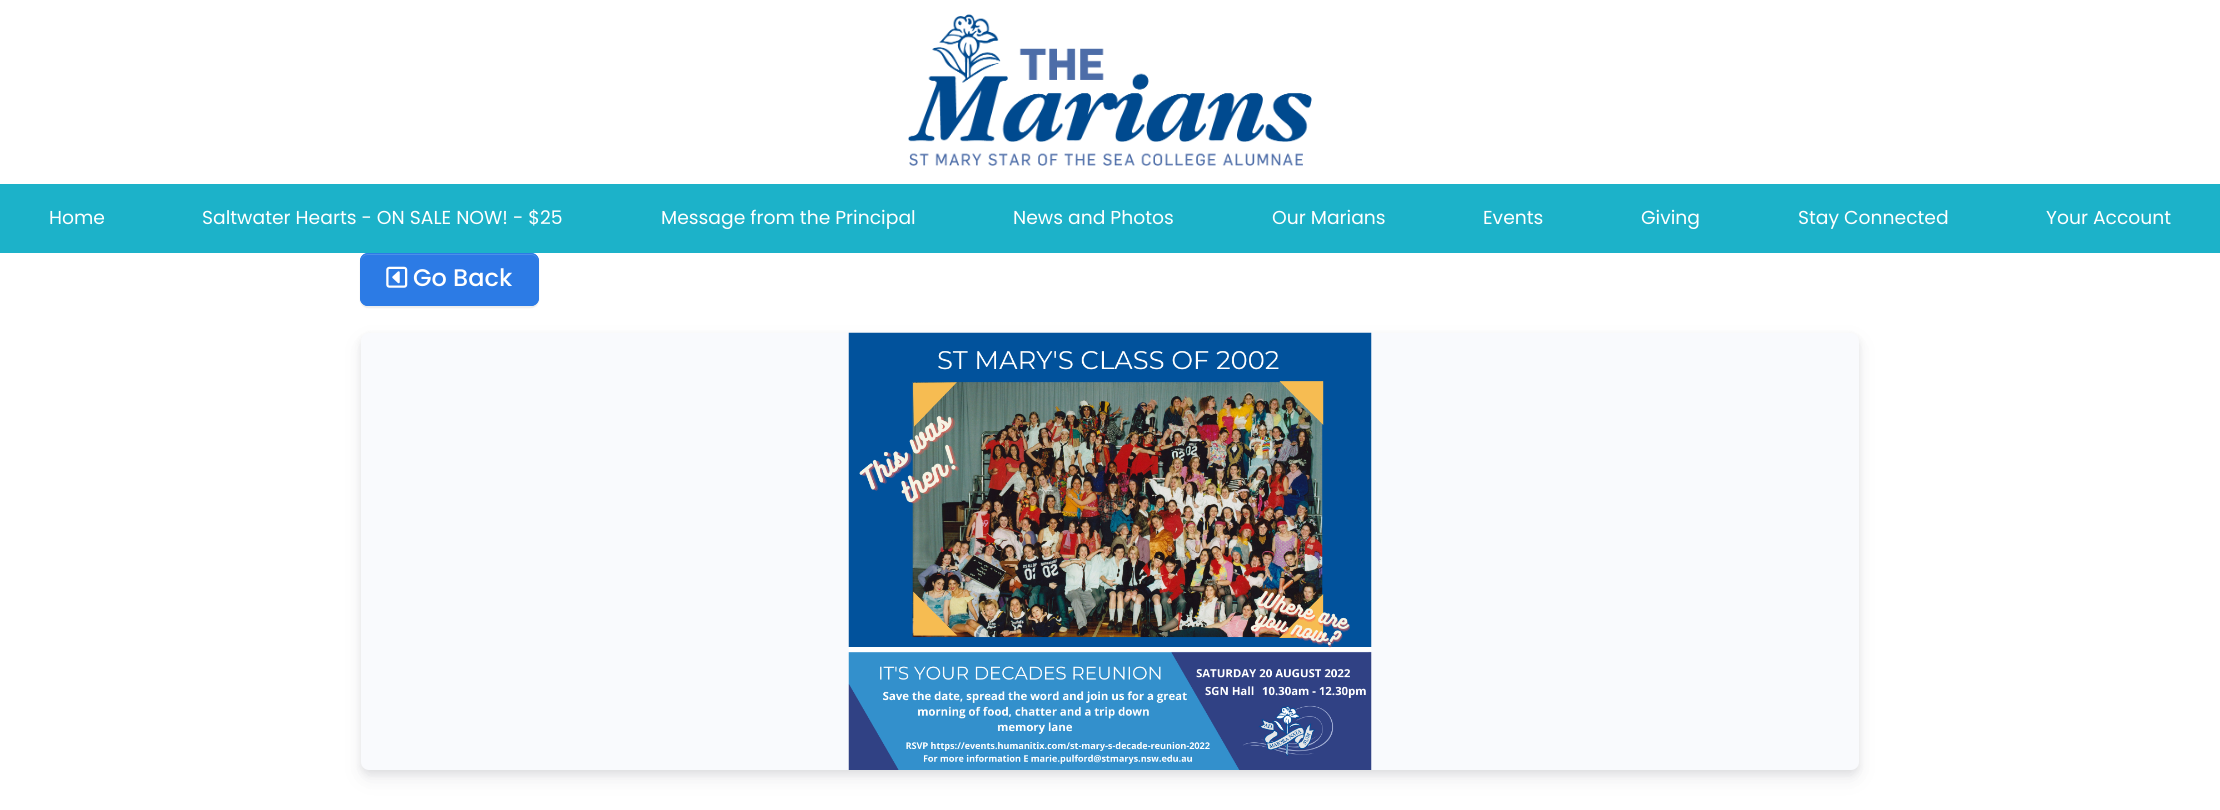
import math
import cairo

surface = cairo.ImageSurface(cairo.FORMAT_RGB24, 2220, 810)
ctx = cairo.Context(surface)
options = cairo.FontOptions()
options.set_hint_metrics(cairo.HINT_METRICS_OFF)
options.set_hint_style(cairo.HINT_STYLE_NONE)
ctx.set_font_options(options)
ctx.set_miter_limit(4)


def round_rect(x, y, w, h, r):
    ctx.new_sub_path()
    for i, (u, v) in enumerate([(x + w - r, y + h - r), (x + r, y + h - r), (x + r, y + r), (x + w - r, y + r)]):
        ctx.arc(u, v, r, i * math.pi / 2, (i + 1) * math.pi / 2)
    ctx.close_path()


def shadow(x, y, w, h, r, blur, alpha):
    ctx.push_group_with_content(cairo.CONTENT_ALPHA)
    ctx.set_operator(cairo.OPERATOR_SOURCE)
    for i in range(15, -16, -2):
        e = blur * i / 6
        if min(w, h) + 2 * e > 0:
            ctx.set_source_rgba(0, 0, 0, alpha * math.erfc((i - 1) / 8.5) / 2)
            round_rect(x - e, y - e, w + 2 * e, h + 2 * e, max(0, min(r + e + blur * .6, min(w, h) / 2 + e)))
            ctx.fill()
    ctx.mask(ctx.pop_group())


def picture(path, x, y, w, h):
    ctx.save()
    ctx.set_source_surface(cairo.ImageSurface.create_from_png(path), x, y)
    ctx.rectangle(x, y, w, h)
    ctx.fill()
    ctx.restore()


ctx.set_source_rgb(1, 1, 1)
ctx.paint()
picture("img1.png", 908, 14, 404, 152)
ctx.set_source_rgb(0, 0, 0)
shadow(360, 254, 179, 54, 8, 0.5, 0.07)
ctx.set_source_rgb(0.11, 0.698, 0.788)
ctx.rectangle(0, 184, 2220, 69)
ctx.fill()
ctx.select_font_face("Poppins")
ctx.set_font_size(18.75)
ctx.set_source_rgb(1, 1, 1)
ctx.move_to(49, 224)
ctx.show_text("Home")
ctx.move_to(202, 224)
ctx.show_text("Saltwater Hearts - ON SALE NOW! - $25")
ctx.move_to(661, 224)
ctx.show_text("Message from the Principal")
ctx.move_to(1013, 224)
ctx.show_text("News and Photos")
ctx.move_to(1272, 224)
ctx.show_text("Our Marians")
ctx.move_to(1483, 224)
ctx.show_text("Events")
ctx.move_to(1641, 224)
ctx.show_text("Giving")
ctx.move_to(1798, 224)
ctx.show_text("Stay Connected")
ctx.move_to(2046, 224)
ctx.show_text("Your Account")
ctx.set_source_rgb(0.173, 0.482, 0.898)
round_rect(360, 253, 179, 53, 8)
ctx.fill()
ctx.set_source_rgb(0.298, 0.561, 0.914)
ctx.new_path()
ctx.move_to(368, 255)
ctx.line_to(531, 255)
ctx.curve_to(535, 255, 538, 258, 538, 261)
ctx.line_to(538, 260)
ctx.curve_to(538, 257, 535, 254, 532, 254)
ctx.line_to(367, 254)
ctx.curve_to(364, 254, 361, 257, 361, 260)
ctx.line_to(361, 261)
ctx.curve_to(361, 258, 364, 255, 368, 255)
ctx.close_path()
ctx.fill()
round_rect(360.5, 253.5, 178, 52, 7.5)
ctx.set_source_rgb(0.173, 0.482, 0.898)
ctx.set_line_width(1)
ctx.stroke()
picture("img2.png", 386, 266, 22, 22)
ctx.select_font_face("Poppins Medium")
ctx.set_font_size(24)
ctx.set_source_rgb(1, 1, 1)
ctx.move_to(413, 286)
ctx.show_text("Go Back")
ctx.set_source_rgb(0, 0, 0)
shadow(361, 336, 1498, 438, 8, 4, 0.07)
ctx.set_source_rgb(0.255, 0.271, 0.345)
shadow(361, 341, 1498, 438, 8, 9, 0.1)
ctx.set_source_rgb(0.976, 0.98, 0.992)
round_rect(361, 333, 1498, 437, 8)
ctx.fill()
picture("img3.png", 848, 332, 524, 438)
surface.write_to_png("page.png")
